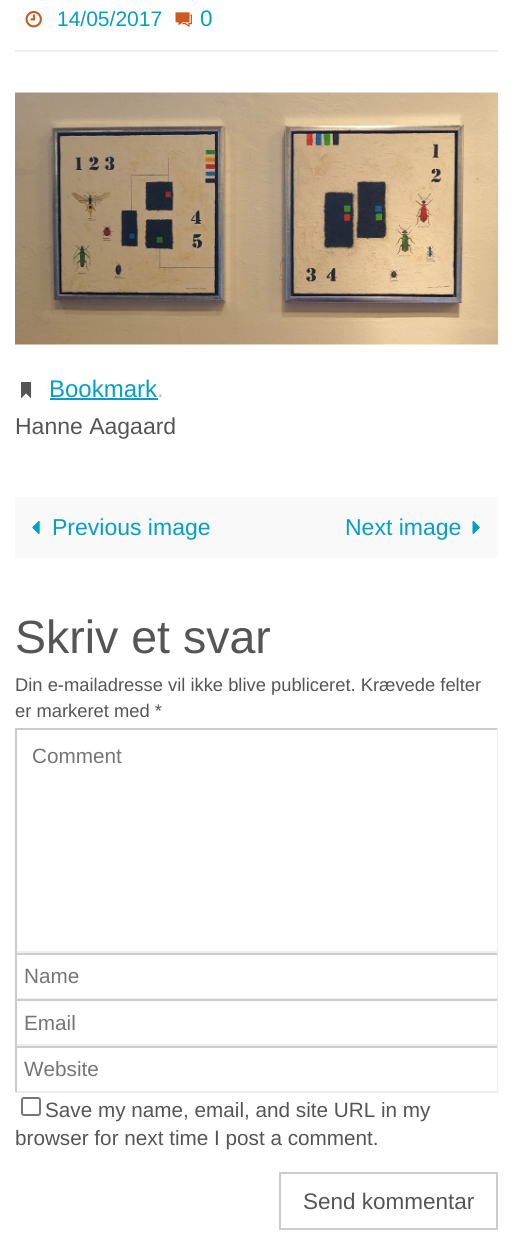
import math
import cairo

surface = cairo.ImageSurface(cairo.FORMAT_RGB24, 512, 1247)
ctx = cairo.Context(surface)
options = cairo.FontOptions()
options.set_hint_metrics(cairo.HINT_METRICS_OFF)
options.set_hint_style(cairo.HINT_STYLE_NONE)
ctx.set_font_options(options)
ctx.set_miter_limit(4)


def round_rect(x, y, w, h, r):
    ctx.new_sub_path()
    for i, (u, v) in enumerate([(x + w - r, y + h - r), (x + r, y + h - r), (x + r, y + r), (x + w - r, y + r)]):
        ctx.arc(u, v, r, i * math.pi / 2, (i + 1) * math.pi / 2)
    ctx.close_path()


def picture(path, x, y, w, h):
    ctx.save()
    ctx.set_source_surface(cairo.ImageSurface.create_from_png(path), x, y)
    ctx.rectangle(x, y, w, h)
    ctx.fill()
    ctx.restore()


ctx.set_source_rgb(1, 1, 1)
ctx.paint()
ctx.set_source_rgb(0.933, 0.933, 0.933)
ctx.rectangle(15, 50, 483, 2)
ctx.fill()
picture("img1.png", 25, 11, 17, 17)
ctx.select_font_face("Liberation Sans")
ctx.set_font_size(21)
ctx.set_source_rgb(0.016, 0.624, 0.776)
ctx.move_to(57, 26)
ctx.show_text("14/05/2017")
picture("img2.png", 175, 12, 17, 15)
ctx.set_font_size(22.5)
ctx.move_to(200, 26)
ctx.show_text("0")
picture("img3.png", 15, 92, 483, 253)
picture("img4.png", 21, 382, 11, 17)
ctx.set_font_size(24)
ctx.move_to(49, 397)
ctx.show_text("Bookmark")
ctx.rectangle(50, 398, 108, 2)
ctx.fill()
ctx.set_source_rgb(0.757, 0.757, 0.757)
ctx.move_to(157, 397)
ctx.show_text(".")
ctx.set_font_size(23)
ctx.set_source_rgb(0.333, 0.333, 0.333)
ctx.move_to(15, 434)
ctx.show_text("Hanne Aagaard")
ctx.set_source_rgb(0.973, 0.973, 0.973)
ctx.rectangle(15, 497, 483, 61)
ctx.fill()
picture("img5.png", 32, 521, 8, 13)
ctx.set_source_rgb(0.016, 0.624, 0.776)
ctx.move_to(52, 535)
ctx.show_text("Previous image")
ctx.move_to(345, 535)
ctx.show_text("Next image")
picture("img6.png", 472, 520, 8, 14)
ctx.set_font_size(46.5)
ctx.set_source_rgb(0.333, 0.333, 0.333)
ctx.move_to(15, 653)
ctx.show_text("Skriv et svar")
ctx.set_font_size(18.35)
ctx.move_to(15, 691)
ctx.show_text("Din e-mailadresse vil ikke blive publiceret. Krævede felter")
ctx.move_to(15, 717)
ctx.show_text("er markeret med *")
ctx.set_source_rgb(0.8, 0.8, 0.8)
ctx.rectangle(15, 728, 483, 2)
ctx.fill()
ctx.set_source_rgb(0.933, 0.933, 0.933)
ctx.rectangle(497, 728, 1, 225)
ctx.fill()
ctx.rectangle(15, 951, 483, 2)
ctx.fill()
ctx.set_source_rgb(0.8, 0.8, 0.8)
ctx.rectangle(15, 728, 2, 225)
ctx.fill()
ctx.set_font_size(20.7)
ctx.set_source_rgb(0.459, 0.459, 0.459)
ctx.move_to(32, 763)
ctx.show_text("Comment")
ctx.set_source_rgb(0.8, 0.8, 0.8)
ctx.rectangle(15, 953, 483, 2)
ctx.fill()
ctx.set_source_rgb(0.933, 0.933, 0.933)
ctx.rectangle(497, 953, 1, 46)
ctx.fill()
ctx.rectangle(15, 998, 483, 1)
ctx.fill()
ctx.set_source_rgb(0.8, 0.8, 0.8)
ctx.rectangle(15, 953, 2, 46)
ctx.fill()
ctx.set_source_rgb(0.459, 0.459, 0.459)
ctx.move_to(24, 983)
ctx.show_text("Name")
ctx.set_source_rgb(0.8, 0.8, 0.8)
ctx.rectangle(15, 999, 483, 2)
ctx.fill()
ctx.set_source_rgb(0.933, 0.933, 0.933)
ctx.rectangle(497, 999, 1, 47)
ctx.fill()
ctx.rectangle(15, 1044, 483, 2)
ctx.fill()
ctx.set_source_rgb(0.8, 0.8, 0.8)
ctx.rectangle(15, 999, 2, 47)
ctx.fill()
ctx.set_source_rgb(0.459, 0.459, 0.459)
ctx.move_to(24, 1030)
ctx.show_text("Email")
ctx.set_source_rgb(0.8, 0.8, 0.8)
ctx.rectangle(15, 1046, 483, 2)
ctx.fill()
ctx.set_source_rgb(0.933, 0.933, 0.933)
ctx.rectangle(497, 1046, 1, 46)
ctx.fill()
ctx.rectangle(15, 1091, 483, 2)
ctx.fill()
ctx.set_source_rgb(0.8, 0.8, 0.8)
ctx.rectangle(15, 1046, 2, 46)
ctx.fill()
ctx.set_source_rgb(0.459, 0.459, 0.459)
ctx.move_to(24, 1076)
ctx.show_text("Website")
round_rect(22, 1098, 18, 17, 2)
ctx.set_source_rgb(0.463, 0.463, 0.463)
ctx.stroke()
ctx.set_source_rgb(0.333, 0.333, 0.333)
ctx.move_to(45, 1117)
ctx.show_text("Save my name, email, and site URL in my")
ctx.move_to(15, 1145)
ctx.show_text("browser for next time I post a comment.")
ctx.rectangle(280, 1173, 217, 56)
ctx.set_source_rgb(0.8, 0.8, 0.8)
ctx.stroke()
ctx.set_font_size(22.5)
ctx.set_source_rgb(0.333, 0.333, 0.333)
ctx.move_to(303, 1209)
ctx.show_text("Send kommentar")
surface.write_to_png("page.png")
